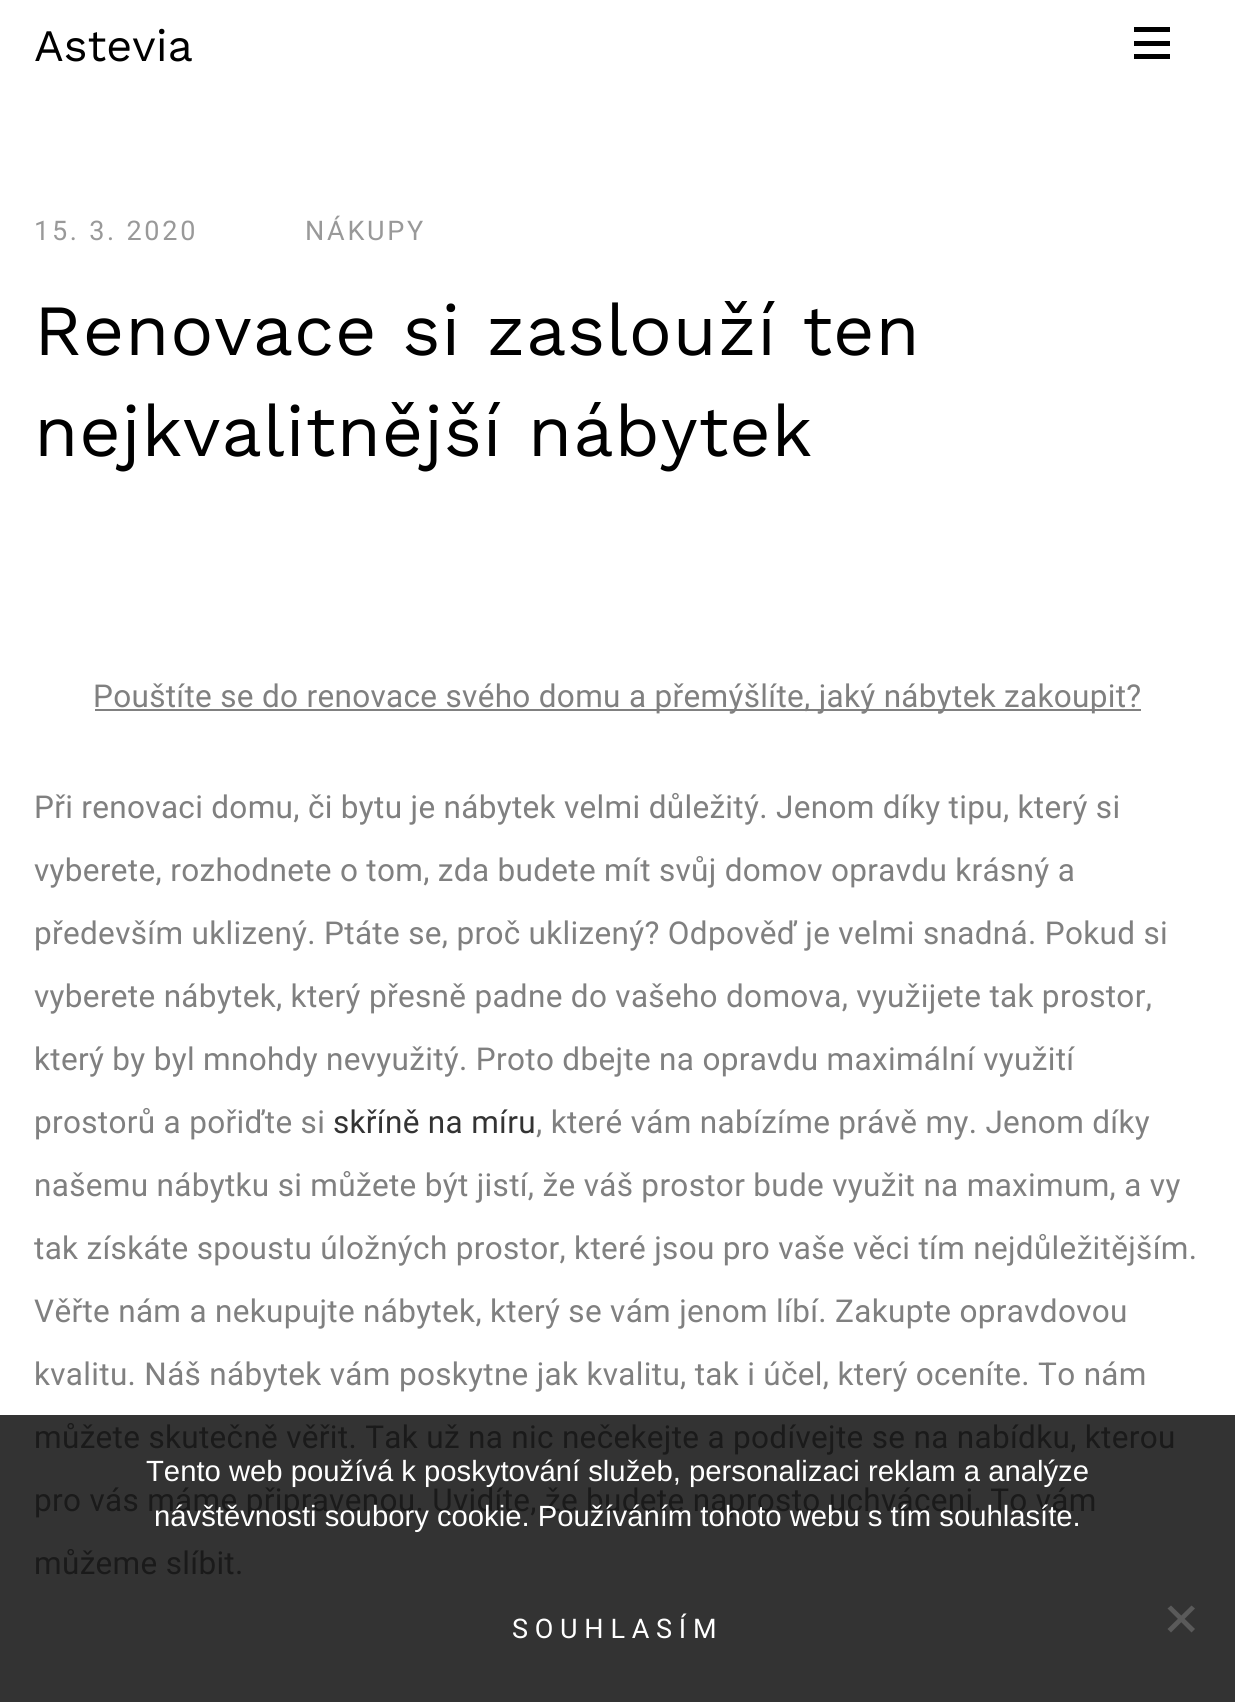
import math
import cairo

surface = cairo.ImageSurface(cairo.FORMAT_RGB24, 1235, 1702)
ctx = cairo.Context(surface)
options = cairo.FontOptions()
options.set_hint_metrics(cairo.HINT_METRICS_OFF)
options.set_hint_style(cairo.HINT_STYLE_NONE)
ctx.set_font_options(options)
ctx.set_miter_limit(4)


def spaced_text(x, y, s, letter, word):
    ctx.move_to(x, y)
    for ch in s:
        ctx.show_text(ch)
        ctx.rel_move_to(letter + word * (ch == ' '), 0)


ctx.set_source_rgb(1, 1, 1)
ctx.paint()
ctx.set_source_rgb(0.2, 0.2, 0.2)
ctx.rectangle(0, 1415, 1235, 287)
ctx.fill()
ctx.select_font_face("Work Sans")
ctx.set_font_size(45)
ctx.set_source_rgb(0, 0, 0)
ctx.move_to(34, 61)
ctx.show_text("Astevia")
ctx.rectangle(1134, 27, 36, 5)
ctx.fill()
ctx.rectangle(1134, 41, 36, 5)
ctx.fill()
ctx.rectangle(1134, 54, 36, 5)
ctx.fill()
ctx.select_font_face("Roboto")
ctx.set_font_size(27)
ctx.set_source_rgb(0.6, 0.6, 0.6)
spaced_text(34, 240, "15. 3. 2020", 2.75, 0)
spaced_text(305, 240, "NÁKUPY", 2.75, 0)
ctx.select_font_face("Work Sans")
ctx.set_font_size(72)
ctx.set_source_rgb(0, 0, 0)
spaced_text(34, 355, "Renovace si zaslouží ten", 0.75, 0)
spaced_text(34, 456, "nejkvalitnější nábytek", 0.75, 0)
ctx.set_source_rgb(0.502, 0.502, 0.502)
ctx.rectangle(95, 709, 1046, 2)
ctx.fill()
ctx.select_font_face("Roboto")
ctx.set_font_size(31.5)
spaced_text(93, 707, "Pouštíte se do renovace svého domu a přemýšlíte, jaký nábytek zakoupit?", 0.32, 0)
spaced_text(34, 818, "Při renovaci domu, či bytu je nábytek velmi důležitý. Jenom díky tipu, který si", 0.32, 0)
spaced_text(34, 881, "vyberete, rozhodnete o tom, zda budete mít svůj domov opravdu krásný a", 0.32, 0)
spaced_text(34, 944, "především uklizený. Ptáte se, proč uklizený? Odpověď je velmi snadná. Pokud si", 0.32, 0)
spaced_text(34, 1007, "vyberete nábytek, který přesně padne do vašeho domova, využijete tak prostor,", 0.32, 0)
spaced_text(34, 1070, "který by byl mnohdy nevyužitý. Proto dbejte na opravdu maximální využití", 0.32, 0)
spaced_text(34, 1133, "prostorů a pořiďte si", 0.32, 0)
ctx.set_source_rgb(0.2, 0.2, 0.2)
spaced_text(333, 1133, "skříně na míru", 0.32, 0)
ctx.set_source_rgb(0.502, 0.502, 0.502)
spaced_text(536, 1133, ", které vám nabízíme právě my. Jenom díky", 0.32, 0)
spaced_text(34, 1196, "našemu nábytku si můžete být jistí, že váš prostor bude využit na maximum, a vy", 0.32, 0)
spaced_text(34, 1259, "tak získáte spoustu úložných prostor, které jsou pro vaše věci tím nejdůležitějším.", 0.32, 0)
spaced_text(34, 1322, "Věřte nám a nekupujte nábytek, který se vám jenom líbí. Zakupte opravdovou", 0.32, 0)
spaced_text(34, 1385, "kvalitu. Náš nábytek vám poskytne jak kvalitu, tak i účel, který oceníte. To nám", 0.32, 0)
ctx.set_source_rgb(0.102, 0.102, 0.102)
spaced_text(34, 1448, "můžete skutečně věřit. Tak už na nic nečekejte a podívejte se na nabídku, kterou", 0.32, 0)
spaced_text(34, 1511, "pro vás máme připravenou. Uvidíte, že budete naprosto uchváceni. To vám", 0.32, 0)
spaced_text(34, 1574, "můžeme slíbit.", 0.32, 0)
ctx.select_font_face("Liberation Sans")
ctx.set_font_size(29.25)
ctx.set_source_rgb(1, 1, 1)
ctx.move_to(146, 1481)
ctx.show_text("Tento web používá k poskytování služeb, personalizaci reklam a analýze")
ctx.move_to(154, 1526)
ctx.show_text("návštěvnosti soubory cookie. Používáním tohoto webu s tím souhlasíte.")
ctx.select_font_face("Roboto")
ctx.set_font_size(27)
spaced_text(512, 1638, "SOUHLASÍM", 6.75, 0)
ctx.set_source_rgb(0.353, 0.353, 0.353)
ctx.new_path()
ctx.move_to(1191.5, 1605.5)
ctx.line_to(1195, 1608.5)
ctx.line_to(1171, 1632.5)
ctx.line_to(1167.5, 1629)
ctx.close_path()
ctx.fill()
ctx.new_path()
ctx.move_to(1167.5, 1608.5)
ctx.line_to(1171, 1605.5)
ctx.line_to(1195, 1629)
ctx.line_to(1191.5, 1632.5)
ctx.close_path()
ctx.fill()
surface.write_to_png("page.png")
